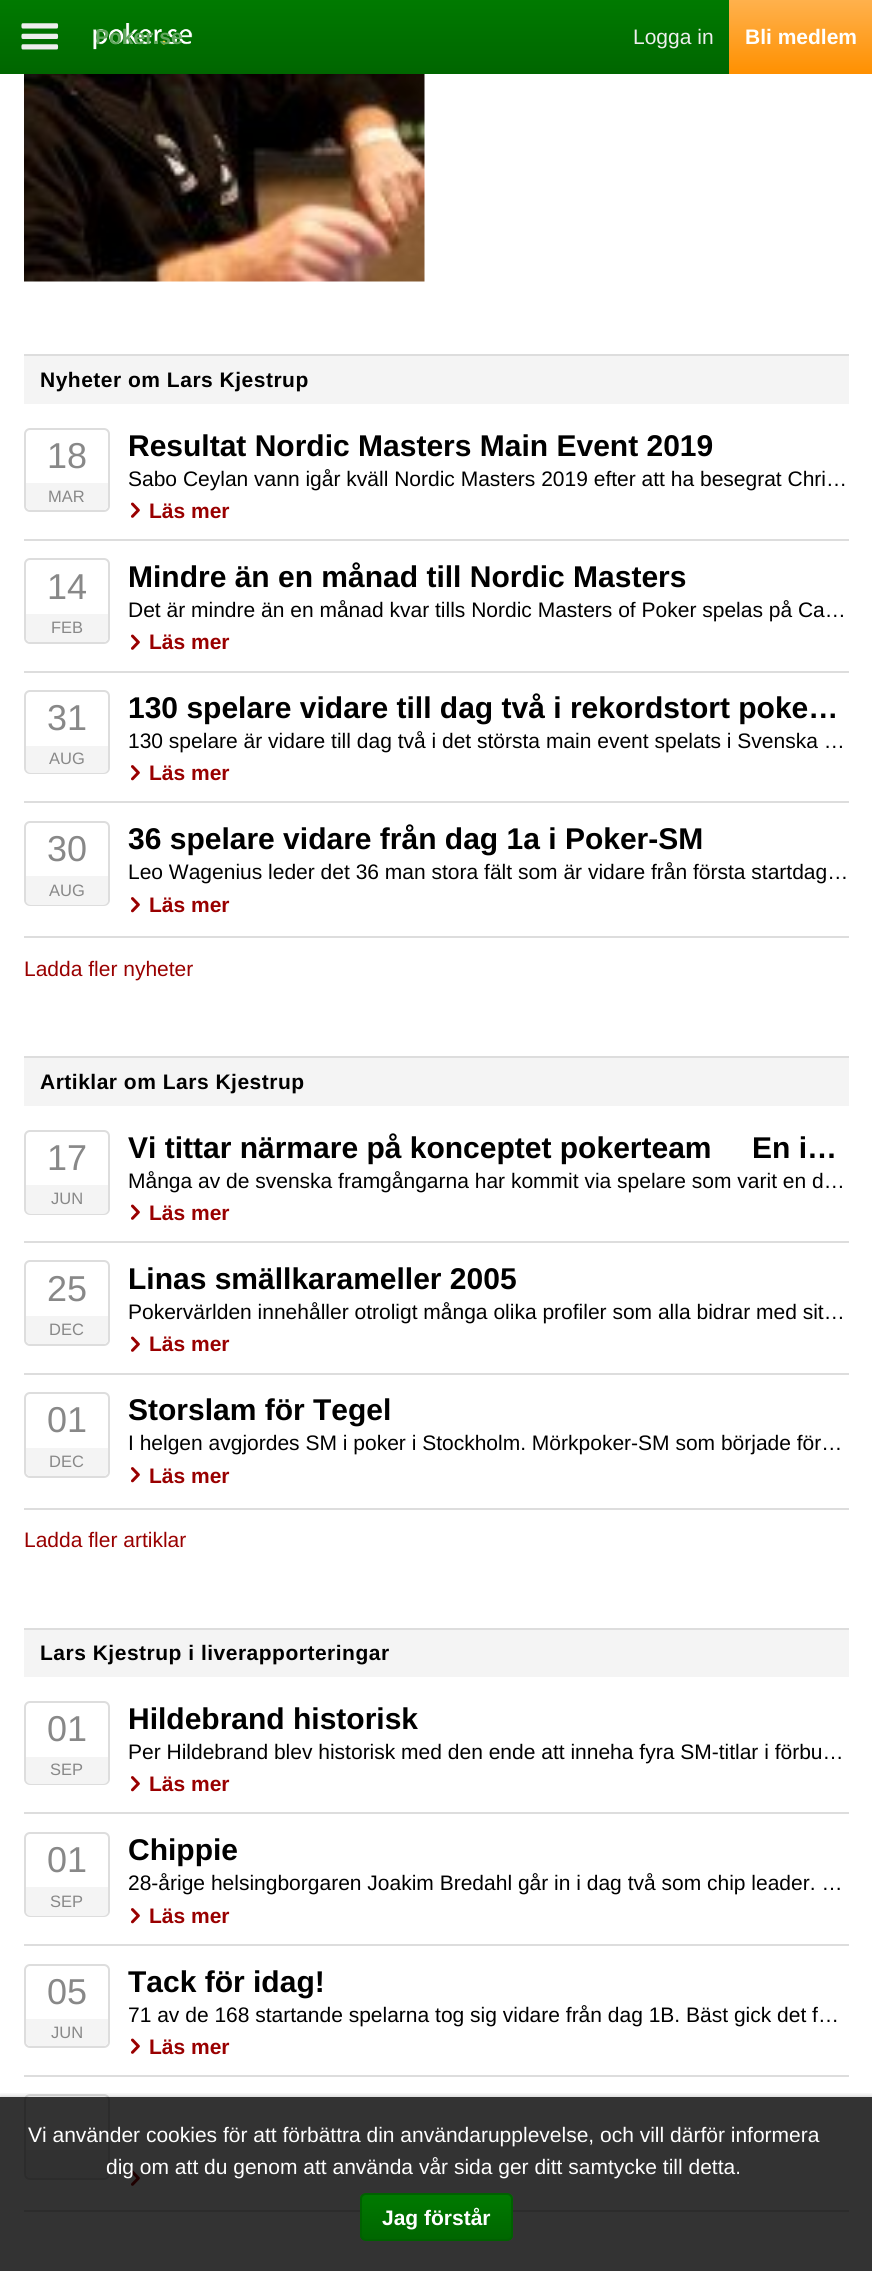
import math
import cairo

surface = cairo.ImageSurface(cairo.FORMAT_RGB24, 872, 2271)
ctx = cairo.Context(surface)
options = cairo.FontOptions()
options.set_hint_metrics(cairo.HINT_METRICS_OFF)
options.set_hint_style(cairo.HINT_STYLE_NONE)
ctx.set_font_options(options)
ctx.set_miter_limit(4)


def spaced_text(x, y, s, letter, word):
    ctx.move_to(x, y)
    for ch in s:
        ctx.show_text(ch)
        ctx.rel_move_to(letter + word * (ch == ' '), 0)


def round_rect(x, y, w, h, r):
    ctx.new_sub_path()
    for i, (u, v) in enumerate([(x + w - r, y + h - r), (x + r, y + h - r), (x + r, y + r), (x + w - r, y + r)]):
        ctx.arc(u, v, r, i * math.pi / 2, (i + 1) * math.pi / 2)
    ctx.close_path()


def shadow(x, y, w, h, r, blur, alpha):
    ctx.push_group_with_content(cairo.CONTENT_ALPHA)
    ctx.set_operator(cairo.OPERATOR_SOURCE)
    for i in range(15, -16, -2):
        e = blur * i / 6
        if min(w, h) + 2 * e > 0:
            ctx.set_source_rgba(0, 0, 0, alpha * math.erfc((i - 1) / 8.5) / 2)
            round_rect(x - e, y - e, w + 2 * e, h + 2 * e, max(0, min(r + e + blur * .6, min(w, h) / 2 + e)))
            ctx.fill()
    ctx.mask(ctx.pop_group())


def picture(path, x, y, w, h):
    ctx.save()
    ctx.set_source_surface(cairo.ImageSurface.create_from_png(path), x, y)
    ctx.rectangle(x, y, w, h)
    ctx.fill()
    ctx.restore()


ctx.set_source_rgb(1, 1, 1)
ctx.paint()
gradient = cairo.LinearGradient(437, 0, 437, 74)
gradient.add_color_stop_rgba(0, 0, 0.478, 0, 1)
gradient.add_color_stop_rgba(1, 0, 0.4, 0, 1)
ctx.set_source(gradient)
ctx.rectangle(0, 0, 729, 74)
ctx.fill()
picture("img1.png", 21, 23, 38, 27)
picture("img2.png", 93, 23, 100, 27)
ctx.select_font_face("Liberation Sans", cairo.FONT_SLANT_NORMAL, cairo.FONT_WEIGHT_BOLD)
ctx.set_font_size(21)
ctx.set_source_rgb(0.384, 0.651, 0.373)
ctx.move_to(95, 44)
ctx.show_text("Poker.se")
ctx.select_font_face("Liberation Sans")
ctx.set_source_rgb(0.933, 0.933, 0.933)
ctx.move_to(633, 44)
ctx.show_text("Logga in")
gradient = cairo.LinearGradient(801, 0, 801, 74)
gradient.add_color_stop_rgba(0, 1, 0.694, 0.302, 1)
gradient.add_color_stop_rgba(1, 1, 0.565, 0, 1)
ctx.set_source(gradient)
ctx.rectangle(729, 0, 143, 74)
ctx.fill()
ctx.select_font_face("Liberation Sans", cairo.FONT_SLANT_NORMAL, cairo.FONT_WEIGHT_BOLD)
ctx.set_source_rgb(1, 1, 1)
ctx.move_to(745, 44)
ctx.show_text("Bli medlem")
picture("img3.png", 24, 74, 401, 208)
ctx.set_source_rgb(0.957, 0.957, 0.957)
ctx.rectangle(24, 356, 825, 48)
ctx.fill()
ctx.set_source_rgb(0.867, 0.867, 0.867)
ctx.rectangle(24, 354, 825, 2)
ctx.fill()
ctx.set_source_rgb(0, 0, 0)
spaced_text(40, 387, "Nyheter om Lars Kjestrup", 0.5, 0)
round_rect(25, 429, 84, 82, 5)
ctx.set_source_rgb(0.867, 0.867, 0.867)
ctx.stroke()
ctx.select_font_face("Liberation Sans")
ctx.set_font_size(36)
ctx.set_source_rgb(0.533, 0.533, 0.533)
ctx.move_to(47, 468)
ctx.show_text("18")
ctx.set_source_rgb(0.957, 0.957, 0.957)
ctx.new_path()
ctx.move_to(26, 483)
ctx.line_to(108, 483)
ctx.line_to(108, 505)
ctx.curve_to(108, 508, 106, 510, 103, 510)
ctx.line_to(31, 510)
ctx.curve_to(28, 510, 26, 508, 26, 505)
ctx.close_path()
ctx.fill()
ctx.set_font_size(16.5)
ctx.set_source_rgb(0.533, 0.533, 0.533)
ctx.move_to(48, 502)
ctx.show_text("MAR")
ctx.select_font_face("Liberation Sans", cairo.FONT_SLANT_NORMAL, cairo.FONT_WEIGHT_BOLD)
ctx.set_font_size(30)
ctx.set_source_rgb(0, 0, 0)
ctx.move_to(128, 456)
ctx.show_text("Resultat Nordic Masters Main Event 2019")
ctx.select_font_face("Liberation Sans")
ctx.set_font_size(21)
ctx.move_to(128, 486)
ctx.show_text("Sabo Ceylan vann igår kväll Nordic Masters 2019 efter att ha besegrat Chri…")
picture("img4.png", 131, 502, 9, 16)
ctx.select_font_face("Liberation Sans", cairo.FONT_SLANT_NORMAL, cairo.FONT_WEIGHT_BOLD)
ctx.set_source_rgb(0.6, 0, 0)
ctx.move_to(149, 518)
ctx.show_text("Läs mer")
ctx.set_source_rgb(0.867, 0.867, 0.867)
ctx.rectangle(24, 539, 825, 2)
ctx.fill()
round_rect(25, 559, 84, 84, 5)
ctx.stroke()
ctx.select_font_face("Liberation Sans")
ctx.set_font_size(36)
ctx.set_source_rgb(0.533, 0.533, 0.533)
ctx.move_to(47, 599)
ctx.show_text("14")
ctx.set_source_rgb(0.957, 0.957, 0.957)
ctx.new_path()
ctx.move_to(26, 614)
ctx.line_to(108, 614)
ctx.line_to(108, 637)
ctx.curve_to(108, 640, 106, 642, 103, 642)
ctx.line_to(31, 642)
ctx.curve_to(28, 642, 26, 640, 26, 637)
ctx.close_path()
ctx.fill()
ctx.set_font_size(16.5)
ctx.set_source_rgb(0.533, 0.533, 0.533)
ctx.move_to(51, 633)
ctx.show_text("FEB")
ctx.select_font_face("Liberation Sans", cairo.FONT_SLANT_NORMAL, cairo.FONT_WEIGHT_BOLD)
ctx.set_font_size(30)
ctx.set_source_rgb(0, 0, 0)
ctx.move_to(128, 587)
ctx.show_text("Mindre än en månad till Nordic Masters")
ctx.select_font_face("Liberation Sans")
ctx.set_font_size(21)
ctx.move_to(128, 617)
ctx.show_text("Det är mindre än en månad kvar tills Nordic Masters of Poker spelas på Ca…")
picture("img4.png", 131, 634, 9, 16)
ctx.select_font_face("Liberation Sans", cairo.FONT_SLANT_NORMAL, cairo.FONT_WEIGHT_BOLD)
ctx.set_source_rgb(0.6, 0, 0)
ctx.move_to(149, 649)
ctx.show_text("Läs mer")
ctx.set_source_rgb(0.867, 0.867, 0.867)
ctx.rectangle(24, 671, 825, 2)
ctx.fill()
round_rect(25, 691, 84, 82, 5)
ctx.stroke()
ctx.select_font_face("Liberation Sans")
ctx.set_font_size(36)
ctx.set_source_rgb(0.533, 0.533, 0.533)
ctx.move_to(47, 730)
ctx.show_text("31")
ctx.set_source_rgb(0.957, 0.957, 0.957)
ctx.new_path()
ctx.move_to(26, 746)
ctx.line_to(108, 746)
ctx.line_to(108, 768)
ctx.curve_to(108, 771, 106, 773, 103, 773)
ctx.line_to(31, 773)
ctx.curve_to(28, 773, 26, 771, 26, 768)
ctx.close_path()
ctx.fill()
ctx.set_font_size(16.5)
ctx.set_source_rgb(0.533, 0.533, 0.533)
ctx.move_to(49, 764)
ctx.show_text("AUG")
ctx.select_font_face("Liberation Sans", cairo.FONT_SLANT_NORMAL, cairo.FONT_WEIGHT_BOLD)
ctx.set_font_size(30)
ctx.set_source_rgb(0, 0, 0)
ctx.move_to(128, 718)
ctx.show_text("130 spelare vidare till dag två i rekordstort poke…")
ctx.select_font_face("Liberation Sans")
ctx.set_font_size(21)
ctx.move_to(128, 748)
ctx.show_text("130 spelare är vidare till dag två i det största main event spelats i Svenska …")
picture("img5.png", 131, 765, 9, 16)
ctx.select_font_face("Liberation Sans", cairo.FONT_SLANT_NORMAL, cairo.FONT_WEIGHT_BOLD)
ctx.set_source_rgb(0.6, 0, 0)
ctx.move_to(149, 780)
ctx.show_text("Läs mer")
ctx.set_source_rgb(0.867, 0.867, 0.867)
ctx.rectangle(24, 801, 825, 2)
ctx.fill()
round_rect(25, 822, 84, 83, 5)
ctx.stroke()
ctx.select_font_face("Liberation Sans")
ctx.set_font_size(36)
ctx.set_source_rgb(0.533, 0.533, 0.533)
ctx.move_to(47, 861)
ctx.show_text("30")
ctx.set_source_rgb(0.957, 0.957, 0.957)
ctx.new_path()
ctx.move_to(26, 876)
ctx.line_to(108, 876)
ctx.line_to(108, 900)
ctx.curve_to(108, 903, 106, 905, 103, 905)
ctx.line_to(31, 905)
ctx.curve_to(28, 905, 26, 903, 26, 900)
ctx.close_path()
ctx.fill()
ctx.set_font_size(16.5)
ctx.set_source_rgb(0.533, 0.533, 0.533)
ctx.move_to(49, 896)
ctx.show_text("AUG")
ctx.select_font_face("Liberation Sans", cairo.FONT_SLANT_NORMAL, cairo.FONT_WEIGHT_BOLD)
ctx.set_font_size(30)
ctx.set_source_rgb(0, 0, 0)
ctx.move_to(128, 849)
ctx.show_text("36 spelare vidare från dag 1a i Poker-SM")
ctx.select_font_face("Liberation Sans")
ctx.set_font_size(21)
ctx.move_to(128, 879)
ctx.show_text("Leo Wagenius leder det 36 man stora fält som är vidare från första startdag…")
picture("img5.png", 131, 897, 9, 16)
ctx.select_font_face("Liberation Sans", cairo.FONT_SLANT_NORMAL, cairo.FONT_WEIGHT_BOLD)
ctx.set_source_rgb(0.6, 0, 0)
ctx.move_to(149, 912)
ctx.show_text("Läs mer")
ctx.set_source_rgb(0.867, 0.867, 0.867)
ctx.rectangle(24, 936, 825, 2)
ctx.fill()
ctx.select_font_face("Liberation Sans")
ctx.set_source_rgb(0.6, 0, 0)
ctx.move_to(24, 976)
ctx.show_text("Ladda fler nyheter")
ctx.set_source_rgb(0.957, 0.957, 0.957)
ctx.rectangle(24, 1058, 825, 48)
ctx.fill()
ctx.set_source_rgb(0.867, 0.867, 0.867)
ctx.rectangle(24, 1056, 825, 2)
ctx.fill()
ctx.select_font_face("Liberation Sans", cairo.FONT_SLANT_NORMAL, cairo.FONT_WEIGHT_BOLD)
ctx.set_source_rgb(0, 0, 0)
spaced_text(40, 1089, "Artiklar om Lars Kjestrup", 0.5, 0)
round_rect(25, 1131, 84, 83, 5)
ctx.set_source_rgb(0.867, 0.867, 0.867)
ctx.stroke()
ctx.select_font_face("Liberation Sans")
ctx.set_font_size(36)
ctx.set_source_rgb(0.533, 0.533, 0.533)
ctx.move_to(47, 1170)
ctx.show_text("17")
ctx.set_source_rgb(0.957, 0.957, 0.957)
ctx.new_path()
ctx.move_to(26, 1185)
ctx.line_to(108, 1185)
ctx.line_to(108, 1209)
ctx.curve_to(108, 1212, 106, 1214, 103, 1214)
ctx.line_to(31, 1214)
ctx.curve_to(28, 1214, 26, 1212, 26, 1209)
ctx.close_path()
ctx.fill()
ctx.set_font_size(16.5)
ctx.set_source_rgb(0.533, 0.533, 0.533)
ctx.move_to(51, 1204)
ctx.show_text("JUN")
ctx.select_font_face("Liberation Sans", cairo.FONT_SLANT_NORMAL, cairo.FONT_WEIGHT_BOLD)
ctx.set_font_size(30)
ctx.set_source_rgb(0, 0, 0)
ctx.move_to(128, 1158)
ctx.show_text("Vi tittar närmare på konceptet pokerteam")
ctx.move_to(752, 1158)
ctx.show_text("En i…")
ctx.select_font_face("Liberation Sans")
ctx.set_font_size(21)
ctx.move_to(128, 1188)
ctx.show_text("Många av de svenska framgångarna har kommit via spelare som varit en d…")
picture("img4.png", 131, 1204, 9, 16)
ctx.select_font_face("Liberation Sans", cairo.FONT_SLANT_NORMAL, cairo.FONT_WEIGHT_BOLD)
ctx.set_source_rgb(0.6, 0, 0)
ctx.move_to(149, 1220)
ctx.show_text("Läs mer")
ctx.set_source_rgb(0.867, 0.867, 0.867)
ctx.rectangle(24, 1241, 825, 2)
ctx.fill()
round_rect(25, 1261, 84, 84, 5)
ctx.stroke()
ctx.select_font_face("Liberation Sans")
ctx.set_font_size(36)
ctx.set_source_rgb(0.533, 0.533, 0.533)
ctx.move_to(47, 1301)
ctx.show_text("25")
ctx.set_source_rgb(0.957, 0.957, 0.957)
ctx.new_path()
ctx.move_to(26, 1316)
ctx.line_to(108, 1316)
ctx.line_to(108, 1339)
ctx.curve_to(108, 1342, 106, 1344, 103, 1344)
ctx.line_to(31, 1344)
ctx.curve_to(28, 1344, 26, 1342, 26, 1339)
ctx.close_path()
ctx.fill()
ctx.set_font_size(16.5)
ctx.set_source_rgb(0.533, 0.533, 0.533)
ctx.move_to(49, 1335)
ctx.show_text("DEC")
ctx.select_font_face("Liberation Sans", cairo.FONT_SLANT_NORMAL, cairo.FONT_WEIGHT_BOLD)
ctx.set_font_size(30)
ctx.set_source_rgb(0, 0, 0)
ctx.move_to(128, 1289)
ctx.show_text("Linas smällkarameller 2005")
ctx.select_font_face("Liberation Sans")
ctx.set_font_size(21)
ctx.move_to(128, 1319)
ctx.show_text("Pokervärlden innehåller otroligt många olika profiler som alla bidrar med sit…")
picture("img4.png", 131, 1336, 9, 16)
ctx.select_font_face("Liberation Sans", cairo.FONT_SLANT_NORMAL, cairo.FONT_WEIGHT_BOLD)
ctx.set_source_rgb(0.6, 0, 0)
ctx.move_to(149, 1351)
ctx.show_text("Läs mer")
ctx.set_source_rgb(0.867, 0.867, 0.867)
ctx.rectangle(24, 1373, 825, 2)
ctx.fill()
round_rect(25, 1393, 84, 84, 5)
ctx.stroke()
ctx.select_font_face("Liberation Sans")
ctx.set_font_size(36)
ctx.set_source_rgb(0.533, 0.533, 0.533)
ctx.move_to(47, 1432)
ctx.show_text("01")
ctx.set_source_rgb(0.957, 0.957, 0.957)
ctx.new_path()
ctx.move_to(26, 1448)
ctx.line_to(108, 1448)
ctx.line_to(108, 1471)
ctx.curve_to(108, 1474, 106, 1476, 103, 1476)
ctx.line_to(31, 1476)
ctx.curve_to(28, 1476, 26, 1474, 26, 1471)
ctx.close_path()
ctx.fill()
ctx.set_font_size(16.5)
ctx.set_source_rgb(0.533, 0.533, 0.533)
ctx.move_to(49, 1467)
ctx.show_text("DEC")
ctx.select_font_face("Liberation Sans", cairo.FONT_SLANT_NORMAL, cairo.FONT_WEIGHT_BOLD)
ctx.set_font_size(30)
ctx.set_source_rgb(0, 0, 0)
ctx.move_to(128, 1420)
ctx.show_text("Storslam för Tegel")
ctx.select_font_face("Liberation Sans")
ctx.set_font_size(21)
ctx.move_to(128, 1450)
ctx.show_text("I helgen avgjordes SM i poker i Stockholm. Mörkpoker-SM som började för…")
picture("img5.png", 131, 1467, 9, 16)
ctx.select_font_face("Liberation Sans", cairo.FONT_SLANT_NORMAL, cairo.FONT_WEIGHT_BOLD)
ctx.set_source_rgb(0.6, 0, 0)
ctx.move_to(149, 1483)
ctx.show_text("Läs mer")
ctx.set_source_rgb(0.867, 0.867, 0.867)
ctx.rectangle(24, 1508, 825, 2)
ctx.fill()
ctx.select_font_face("Liberation Sans")
ctx.set_source_rgb(0.6, 0, 0)
ctx.move_to(24, 1547)
ctx.show_text("Ladda fler artiklar")
ctx.set_source_rgb(0.957, 0.957, 0.957)
ctx.rectangle(24, 1630, 825, 47)
ctx.fill()
ctx.set_source_rgb(0.867, 0.867, 0.867)
ctx.rectangle(24, 1628, 825, 2)
ctx.fill()
ctx.select_font_face("Liberation Sans", cairo.FONT_SLANT_NORMAL, cairo.FONT_WEIGHT_BOLD)
ctx.set_source_rgb(0, 0, 0)
spaced_text(40, 1660, "Lars Kjestrup i liverapporteringar", 0.5, 0)
round_rect(25, 1702, 84, 82, 5)
ctx.set_source_rgb(0.867, 0.867, 0.867)
ctx.stroke()
ctx.select_font_face("Liberation Sans")
ctx.set_font_size(36)
ctx.set_source_rgb(0.533, 0.533, 0.533)
ctx.move_to(47, 1741)
ctx.show_text("01")
ctx.set_source_rgb(0.957, 0.957, 0.957)
ctx.new_path()
ctx.move_to(26, 1757)
ctx.line_to(108, 1757)
ctx.line_to(108, 1779)
ctx.curve_to(108, 1782, 106, 1784, 103, 1784)
ctx.line_to(31, 1784)
ctx.curve_to(28, 1784, 26, 1782, 26, 1779)
ctx.close_path()
ctx.fill()
ctx.set_font_size(16.5)
ctx.set_source_rgb(0.533, 0.533, 0.533)
ctx.move_to(50, 1775)
ctx.show_text("SEP")
ctx.select_font_face("Liberation Sans", cairo.FONT_SLANT_NORMAL, cairo.FONT_WEIGHT_BOLD)
ctx.set_font_size(30)
ctx.set_source_rgb(0, 0, 0)
ctx.move_to(128, 1729)
ctx.show_text("Hildebrand historisk")
ctx.select_font_face("Liberation Sans")
ctx.set_font_size(21)
ctx.move_to(128, 1759)
ctx.show_text("Per Hildebrand blev historisk med den ende att inneha fyra SM-titlar i förbu…")
picture("img5.png", 131, 1776, 9, 16)
ctx.select_font_face("Liberation Sans", cairo.FONT_SLANT_NORMAL, cairo.FONT_WEIGHT_BOLD)
ctx.set_source_rgb(0.6, 0, 0)
ctx.move_to(149, 1791)
ctx.show_text("Läs mer")
ctx.set_source_rgb(0.867, 0.867, 0.867)
ctx.rectangle(24, 1812, 825, 2)
ctx.fill()
round_rect(25, 1833, 84, 83, 5)
ctx.stroke()
ctx.select_font_face("Liberation Sans")
ctx.set_font_size(36)
ctx.set_source_rgb(0.533, 0.533, 0.533)
ctx.move_to(47, 1872)
ctx.show_text("01")
ctx.set_source_rgb(0.957, 0.957, 0.957)
ctx.new_path()
ctx.move_to(26, 1887)
ctx.line_to(108, 1887)
ctx.line_to(108, 1911)
ctx.curve_to(108, 1914, 106, 1916, 103, 1916)
ctx.line_to(31, 1916)
ctx.curve_to(28, 1916, 26, 1914, 26, 1911)
ctx.close_path()
ctx.fill()
ctx.set_font_size(16.5)
ctx.set_source_rgb(0.533, 0.533, 0.533)
ctx.move_to(50, 1907)
ctx.show_text("SEP")
ctx.select_font_face("Liberation Sans", cairo.FONT_SLANT_NORMAL, cairo.FONT_WEIGHT_BOLD)
ctx.set_font_size(30)
ctx.set_source_rgb(0, 0, 0)
ctx.move_to(128, 1860)
ctx.show_text("Chippie")
ctx.select_font_face("Liberation Sans")
ctx.set_font_size(21)
ctx.move_to(128, 1890)
ctx.show_text("28-årige helsingborgaren Joakim Bredahl går in i dag två som chip leader. …")
picture("img5.png", 131, 1908, 9, 16)
ctx.select_font_face("Liberation Sans", cairo.FONT_SLANT_NORMAL, cairo.FONT_WEIGHT_BOLD)
ctx.set_source_rgb(0.6, 0, 0)
ctx.move_to(149, 1923)
ctx.show_text("Läs mer")
ctx.set_source_rgb(0.867, 0.867, 0.867)
ctx.rectangle(24, 1944, 825, 2)
ctx.fill()
round_rect(25, 1965, 84, 82, 5)
ctx.stroke()
ctx.select_font_face("Liberation Sans")
ctx.set_font_size(36)
ctx.set_source_rgb(0.533, 0.533, 0.533)
ctx.move_to(47, 2004)
ctx.show_text("05")
ctx.set_source_rgb(0.957, 0.957, 0.957)
ctx.new_path()
ctx.move_to(26, 2019)
ctx.line_to(108, 2019)
ctx.line_to(108, 2041)
ctx.curve_to(108, 2044, 106, 2046, 103, 2046)
ctx.line_to(31, 2046)
ctx.curve_to(28, 2046, 26, 2044, 26, 2041)
ctx.close_path()
ctx.fill()
ctx.set_font_size(16.5)
ctx.set_source_rgb(0.533, 0.533, 0.533)
ctx.move_to(51, 2038)
ctx.show_text("JUN")
ctx.save()
ctx.rectangle(128, 1964, 721, 36)
ctx.clip()
ctx.select_font_face("Liberation Sans", cairo.FONT_SLANT_NORMAL, cairo.FONT_WEIGHT_BOLD)
ctx.set_font_size(30)
ctx.set_source_rgb(0, 0, 0)
ctx.move_to(128, 1992)
ctx.show_text("Tack för idag!")
ctx.restore()
ctx.set_font_size(21)
ctx.set_source_rgb(0, 0, 0)
ctx.move_to(128, 2022)
ctx.show_text("71 av de 168 startande spelarna tog sig vidare från dag 1B. Bäst gick det f…")
picture("img4.png", 131, 2038, 9, 16)
ctx.select_font_face("Liberation Sans", cairo.FONT_SLANT_NORMAL, cairo.FONT_WEIGHT_BOLD)
ctx.set_source_rgb(0.6, 0, 0)
ctx.move_to(149, 2054)
ctx.show_text("Läs mer")
ctx.set_source_rgb(0.867, 0.867, 0.867)
ctx.rectangle(24, 2075, 825, 2)
ctx.fill()
round_rect(25, 2095, 84, 84, 5)
ctx.stroke()
ctx.set_source_rgb(0.957, 0.957, 0.957)
ctx.new_path()
ctx.move_to(26, 2150)
ctx.line_to(108, 2150)
ctx.line_to(108, 2173)
ctx.curve_to(108, 2176, 106, 2178, 103, 2178)
ctx.line_to(31, 2178)
ctx.curve_to(28, 2178, 26, 2176, 26, 2173)
ctx.close_path()
ctx.fill()
picture("img4.png", 131, 2170, 9, 16)
ctx.set_source_rgb(0.867, 0.867, 0.867)
ctx.rectangle(24, 2210, 825, 2)
ctx.fill()
ctx.save()
ctx.rectangle(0, 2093, 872, 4)
ctx.clip()
ctx.set_source_rgb(0, 0, 0)
shadow(0, 2097, 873, 174, 0, 3, 0.25)
ctx.restore()
ctx.set_source_rgba(0, 0, 0, 0.8)
ctx.rectangle(0, 2097, 872, 174)
ctx.fill()
ctx.select_font_face("Liberation Sans")
ctx.set_source_rgb(1, 1, 1)
ctx.move_to(28, 2142)
ctx.show_text("Vi använder cookies för att förbättra din användarupplevelse, och vill därför informera")
ctx.move_to(106, 2174)
ctx.show_text("dig om att du genom att använda vår sida ger ditt samtycke till detta.")
ctx.save()
round_rect(360, 2193, 153, 48, 6)
ctx.clip()
gradient = cairo.LinearGradient(437, 2195, 437, 2240)
gradient.add_color_stop_rgba(0, 0, 0.478, 0, 1)
gradient.add_color_stop_rgba(1, 0, 0.4, 0, 1)
ctx.set_source(gradient)
ctx.rectangle(360, 2195, 153, 45)
ctx.fill()
ctx.restore()
round_rect(361, 2194, 151, 46, 5)
ctx.set_source_rgb(0, 0.38, 0)
ctx.stroke()
ctx.select_font_face("Liberation Sans", cairo.FONT_SLANT_NORMAL, cairo.FONT_WEIGHT_BOLD)
ctx.set_source_rgb(1, 1, 1)
ctx.move_to(382, 2225)
ctx.show_text("Jag förstår")
surface.write_to_png("page.png")
